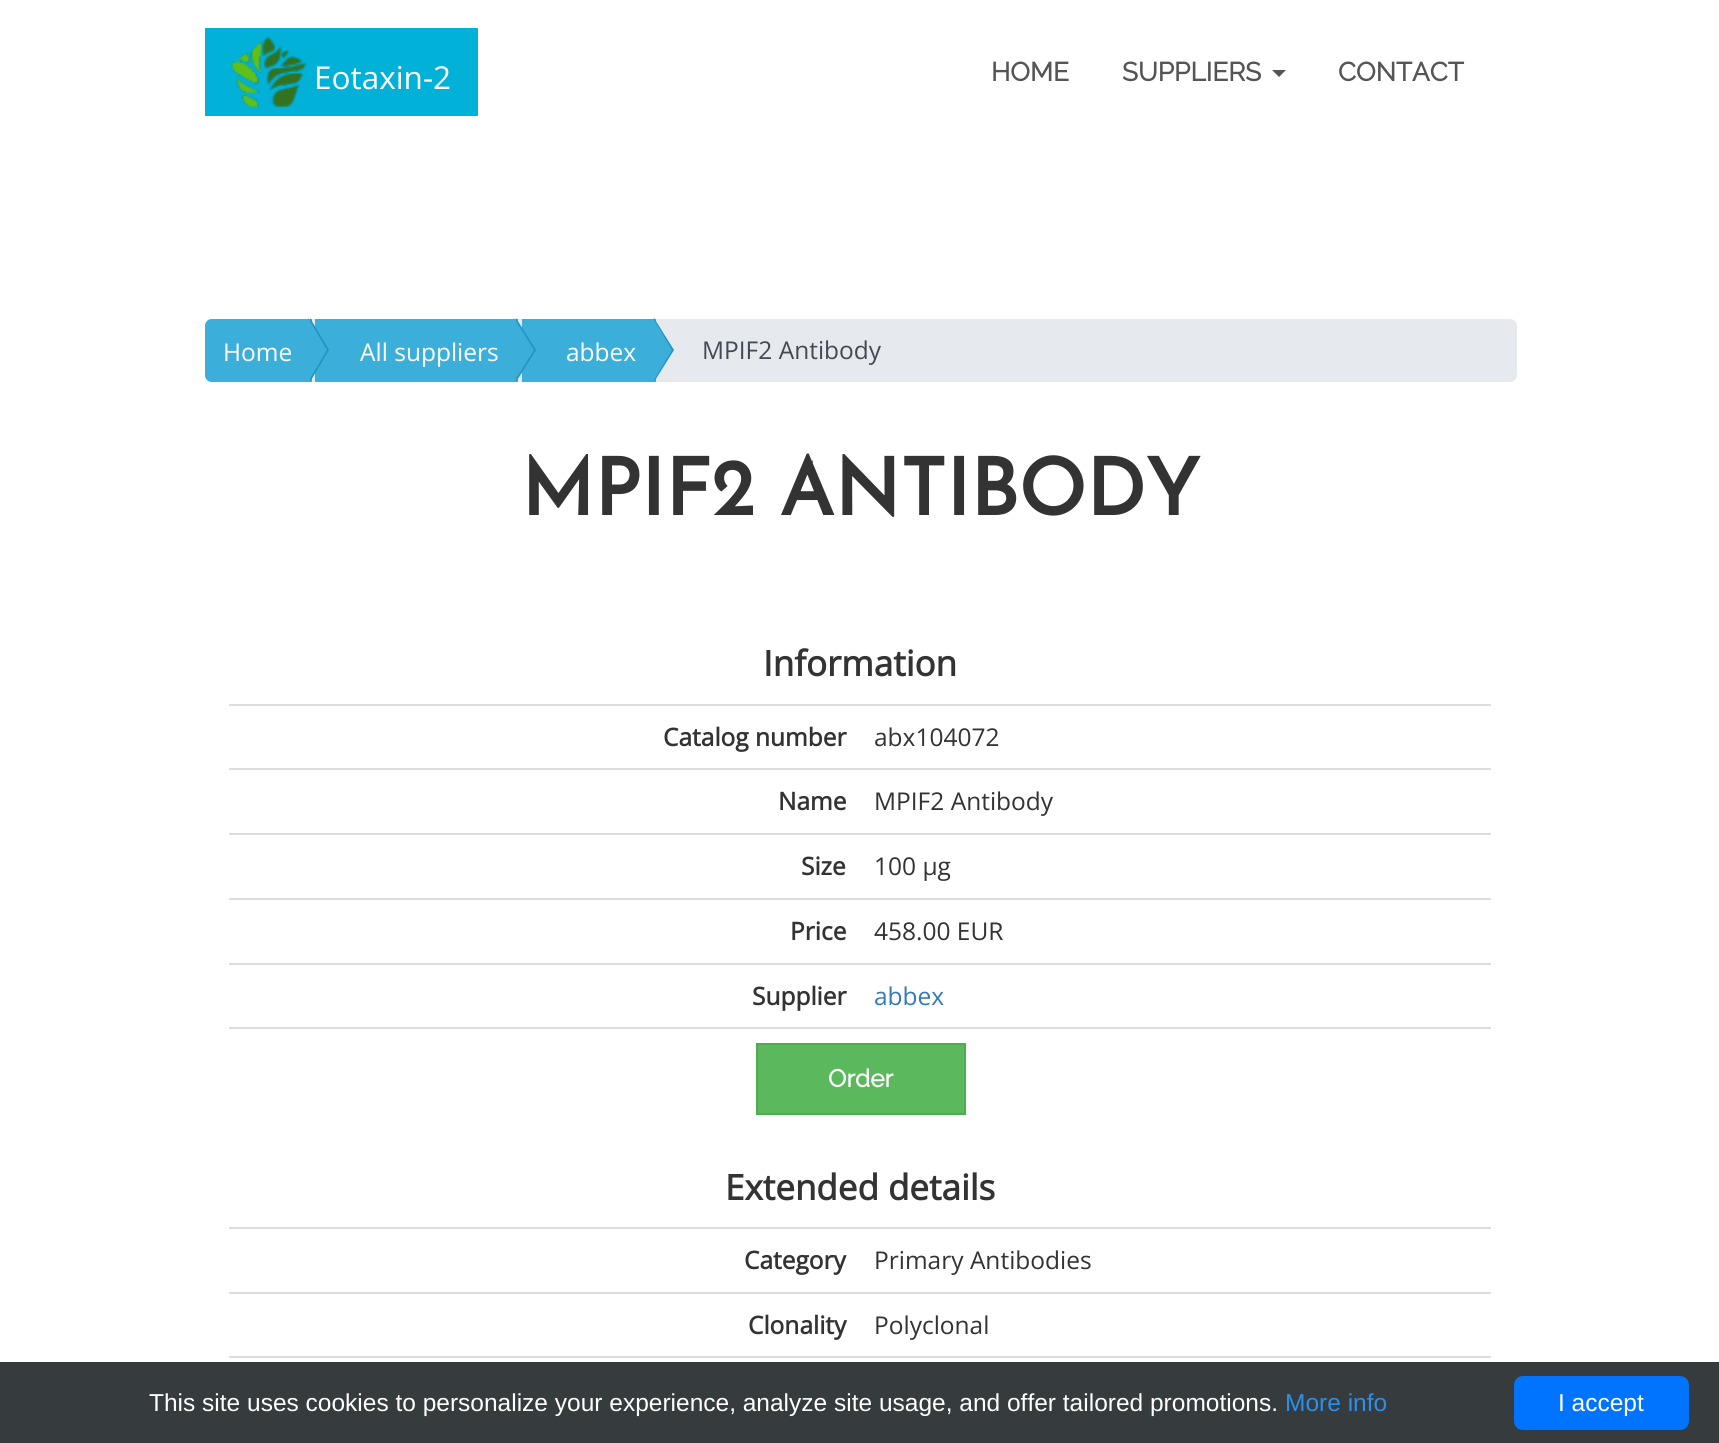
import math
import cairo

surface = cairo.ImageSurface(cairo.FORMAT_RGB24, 1719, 1443)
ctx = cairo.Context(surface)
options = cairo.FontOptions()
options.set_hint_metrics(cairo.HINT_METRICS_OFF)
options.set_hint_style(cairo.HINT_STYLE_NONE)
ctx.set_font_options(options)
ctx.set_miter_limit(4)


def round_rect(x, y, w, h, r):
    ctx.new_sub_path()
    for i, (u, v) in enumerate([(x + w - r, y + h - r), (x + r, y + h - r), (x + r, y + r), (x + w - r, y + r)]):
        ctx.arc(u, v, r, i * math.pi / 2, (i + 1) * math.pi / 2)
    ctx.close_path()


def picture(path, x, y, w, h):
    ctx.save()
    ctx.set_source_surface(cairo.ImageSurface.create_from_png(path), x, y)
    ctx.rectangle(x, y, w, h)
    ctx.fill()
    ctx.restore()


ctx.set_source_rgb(1, 1, 1)
ctx.paint()
ctx.set_source_rgb(0.004, 0.694, 0.843)
ctx.rectangle(205, 28, 273, 88)
ctx.fill()
picture("img1.png", 231, 36, 76, 71)
ctx.select_font_face("Open Sans")
ctx.set_font_size(31.5)
ctx.set_source_rgb(1, 1, 1)
ctx.move_to(314, 89)
ctx.show_text("Eotaxin-2")
ctx.select_font_face("Raleway", cairo.FONT_SLANT_NORMAL, cairo.FONT_WEIGHT_BOLD)
ctx.set_font_size(26.25)
ctx.set_source_rgb(0.333, 0.333, 0.333)
ctx.move_to(991, 81)
ctx.show_text("HOME")
ctx.move_to(1122, 81)
ctx.show_text("SUPPLIERS")
ctx.new_path()
ctx.move_to(1272, 70)
ctx.line_to(1286, 70)
ctx.line_to(1279, 77)
ctx.close_path()
ctx.fill()
ctx.move_to(1338, 81)
ctx.show_text("CONTACT")
ctx.set_source_rgb(0.902, 0.914, 0.929)
round_rect(205, 319, 1312, 63, 7)
ctx.fill()
ctx.set_source_rgb(0.231, 0.686, 0.855)
ctx.new_path()
ctx.move_to(212, 320)
ctx.line_to(311, 320)
ctx.line_to(311, 381)
ctx.line_to(212, 381)
ctx.curve_to(208.5, 381, 206, 378.5, 206, 375)
ctx.line_to(206, 326)
ctx.curve_to(206, 322.5, 208.5, 320, 212, 320)
ctx.close_path()
ctx.fill_preserve()
ctx.stroke()
ctx.rectangle(315, 319, 203, 63)
ctx.fill()
ctx.set_source_rgb(0.141, 0.58, 0.745)
ctx.new_path()
ctx.move_to(310, 382)
ctx.line_to(310, 318)
ctx.line_to(329, 350)
ctx.close_path()
ctx.fill()
ctx.set_source_rgb(0.231, 0.686, 0.855)
ctx.new_path()
ctx.move_to(308, 382)
ctx.line_to(308, 318)
ctx.line_to(327, 350)
ctx.close_path()
ctx.fill()
ctx.select_font_face("Open Sans")
ctx.set_font_size(24.5)
ctx.set_source_rgb(1, 1, 1)
ctx.move_to(223, 361)
ctx.show_text("Home")
ctx.set_source_rgb(0.231, 0.686, 0.855)
ctx.rectangle(522, 319, 134, 63)
ctx.fill()
ctx.set_source_rgb(0.141, 0.58, 0.745)
ctx.new_path()
ctx.move_to(516, 382)
ctx.line_to(516, 318)
ctx.line_to(536, 350)
ctx.close_path()
ctx.fill()
ctx.set_source_rgb(0.231, 0.686, 0.855)
ctx.new_path()
ctx.move_to(514, 382)
ctx.line_to(514, 318)
ctx.line_to(534, 350)
ctx.close_path()
ctx.fill()
ctx.set_source_rgb(1, 1, 1)
ctx.move_to(360, 361)
ctx.show_text("All suppliers")
ctx.set_source_rgb(0.141, 0.58, 0.745)
ctx.new_path()
ctx.move_to(654, 382)
ctx.line_to(654, 318)
ctx.line_to(674, 350)
ctx.close_path()
ctx.fill()
ctx.set_source_rgb(0.231, 0.686, 0.855)
ctx.new_path()
ctx.move_to(653, 382)
ctx.line_to(653, 318)
ctx.line_to(672, 350)
ctx.close_path()
ctx.fill()
ctx.set_source_rgb(1, 1, 1)
ctx.move_to(566, 361)
ctx.show_text("abbex")
ctx.set_source_rgb(0.263, 0.29, 0.329)
ctx.move_to(702, 359)
ctx.show_text("MPIF2 Antibody")
ctx.select_font_face("Josefin Sans", cairo.FONT_SLANT_NORMAL, cairo.FONT_WEIGHT_BOLD)
ctx.set_font_size(78.75)
ctx.set_source_rgb(0.2, 0.2, 0.2)
ctx.move_to(521, 515)
ctx.show_text("MPIF2 ANTIBODY")
ctx.select_font_face("Open Sans", cairo.FONT_SLANT_NORMAL, cairo.FONT_WEIGHT_BOLD)
ctx.set_font_size(35)
ctx.move_to(763, 676)
ctx.show_text("Information")
ctx.set_font_size(24.5)
ctx.move_to(663, 746)
ctx.show_text("Catalog number")
ctx.set_source_rgb(0.867, 0.867, 0.867)
ctx.rectangle(229, 704, 1262, 2)
ctx.fill()
ctx.select_font_face("Open Sans")
ctx.set_source_rgb(0.2, 0.2, 0.2)
ctx.move_to(874, 746)
ctx.show_text("abx104072")
ctx.select_font_face("Open Sans", cairo.FONT_SLANT_NORMAL, cairo.FONT_WEIGHT_BOLD)
ctx.move_to(778, 810)
ctx.show_text("Name")
ctx.set_source_rgb(0.867, 0.867, 0.867)
ctx.rectangle(229, 768, 1262, 2)
ctx.fill()
ctx.select_font_face("Open Sans")
ctx.set_source_rgb(0.2, 0.2, 0.2)
ctx.move_to(874, 810)
ctx.show_text("MPIF2 Antibody")
ctx.select_font_face("Open Sans", cairo.FONT_SLANT_NORMAL, cairo.FONT_WEIGHT_BOLD)
ctx.move_to(801, 875)
ctx.show_text("Size")
ctx.set_source_rgb(0.867, 0.867, 0.867)
ctx.rectangle(229, 833, 1262, 2)
ctx.fill()
ctx.select_font_face("Open Sans")
ctx.set_source_rgb(0.2, 0.2, 0.2)
ctx.move_to(874, 875)
ctx.show_text("100 μg")
ctx.select_font_face("Open Sans", cairo.FONT_SLANT_NORMAL, cairo.FONT_WEIGHT_BOLD)
ctx.move_to(790, 940)
ctx.show_text("Price")
ctx.set_source_rgb(0.867, 0.867, 0.867)
ctx.rectangle(229, 898, 1262, 2)
ctx.fill()
ctx.select_font_face("Open Sans")
ctx.set_source_rgb(0.2, 0.2, 0.2)
ctx.move_to(874, 940)
ctx.show_text("458.00 EUR")
ctx.select_font_face("Open Sans", cairo.FONT_SLANT_NORMAL, cairo.FONT_WEIGHT_BOLD)
ctx.move_to(752, 1005)
ctx.show_text("Supplier")
ctx.set_source_rgb(0.867, 0.867, 0.867)
ctx.rectangle(229, 963, 1262, 2)
ctx.fill()
ctx.select_font_face("Open Sans")
ctx.set_source_rgb(0.2, 0.478, 0.718)
ctx.move_to(874, 1005)
ctx.show_text("abbex")
ctx.set_source_rgb(0.867, 0.867, 0.867)
ctx.rectangle(229, 1027, 1262, 2)
ctx.fill()
ctx.set_source_rgb(0.361, 0.722, 0.361)
ctx.rectangle(757, 1044, 208, 70)
ctx.fill_preserve()
ctx.set_source_rgb(0.298, 0.682, 0.298)
ctx.stroke()
ctx.select_font_face("Raleway", cairo.FONT_SLANT_NORMAL, cairo.FONT_WEIGHT_BOLD)
ctx.set_source_rgb(1, 1, 1)
ctx.move_to(828, 1087)
ctx.show_text("Order")
ctx.select_font_face("Open Sans", cairo.FONT_SLANT_NORMAL, cairo.FONT_WEIGHT_BOLD)
ctx.set_font_size(35)
ctx.set_source_rgb(0.2, 0.2, 0.2)
ctx.move_to(725, 1200)
ctx.show_text("Extended details")
ctx.set_font_size(24.5)
ctx.move_to(744, 1269)
ctx.show_text("Category")
ctx.set_source_rgb(0.867, 0.867, 0.867)
ctx.rectangle(229, 1227, 1262, 2)
ctx.fill()
ctx.select_font_face("Open Sans")
ctx.set_source_rgb(0.2, 0.2, 0.2)
ctx.move_to(874, 1269)
ctx.show_text("Primary Antibodies")
ctx.select_font_face("Open Sans", cairo.FONT_SLANT_NORMAL, cairo.FONT_WEIGHT_BOLD)
ctx.move_to(748, 1334)
ctx.show_text("Clonality")
ctx.set_source_rgb(0.867, 0.867, 0.867)
ctx.rectangle(229, 1292, 1262, 2)
ctx.fill()
ctx.select_font_face("Open Sans")
ctx.set_source_rgb(0.2, 0.2, 0.2)
ctx.move_to(874, 1334)
ctx.show_text("Polyclonal")
ctx.set_source_rgb(0.867, 0.867, 0.867)
ctx.rectangle(229, 1356, 1262, 2)
ctx.fill()
ctx.set_source_rgb(0.212, 0.231, 0.243)
ctx.rectangle(0, 1362, 1719, 81)
ctx.fill()
ctx.select_font_face("Liberation Sans")
ctx.set_source_rgb(1, 1, 1)
ctx.move_to(149, 1411)
ctx.show_text("This site uses cookies to personalize your experience, analyze site usage, and offer tailored promotions.")
ctx.set_source_rgb(0.161, 0.565, 0.918)
ctx.move_to(1285, 1411)
ctx.show_text("More info")
ctx.set_source_rgb(0, 0.451, 1)
round_rect(1514, 1376, 175, 54, 9)
ctx.fill()
ctx.set_source_rgb(1, 1, 1)
ctx.move_to(1558, 1411)
ctx.show_text("I accept")
surface.write_to_png("page.png")
